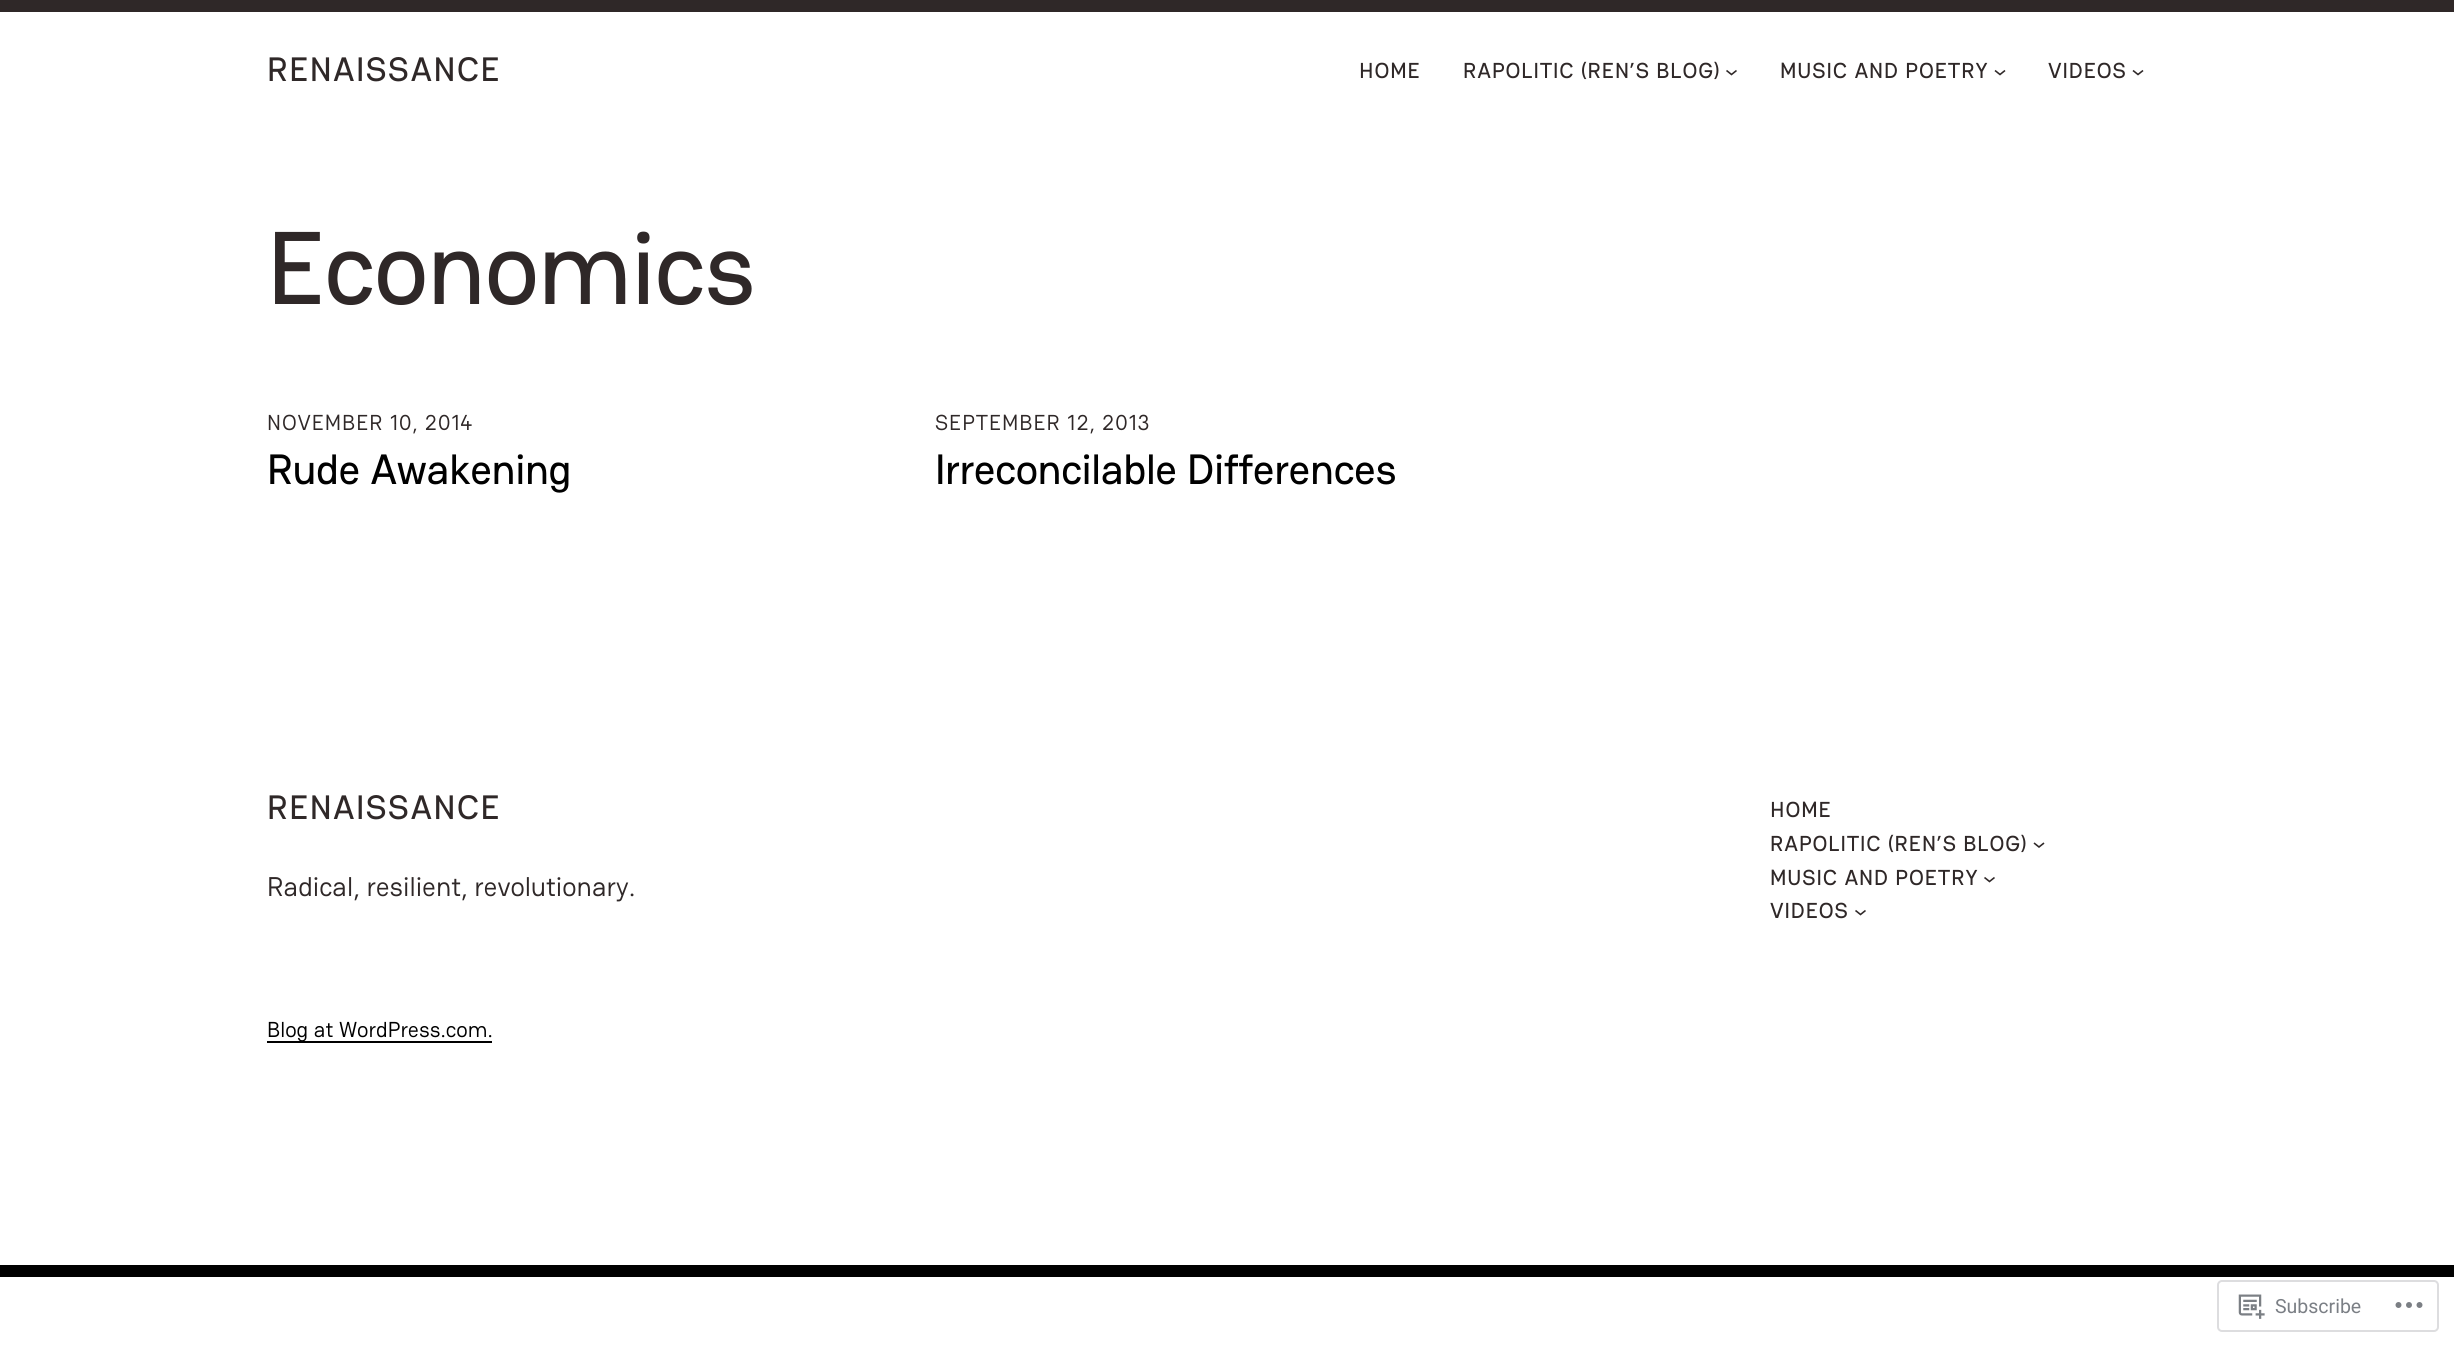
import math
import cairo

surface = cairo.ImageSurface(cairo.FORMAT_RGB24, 2454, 1347)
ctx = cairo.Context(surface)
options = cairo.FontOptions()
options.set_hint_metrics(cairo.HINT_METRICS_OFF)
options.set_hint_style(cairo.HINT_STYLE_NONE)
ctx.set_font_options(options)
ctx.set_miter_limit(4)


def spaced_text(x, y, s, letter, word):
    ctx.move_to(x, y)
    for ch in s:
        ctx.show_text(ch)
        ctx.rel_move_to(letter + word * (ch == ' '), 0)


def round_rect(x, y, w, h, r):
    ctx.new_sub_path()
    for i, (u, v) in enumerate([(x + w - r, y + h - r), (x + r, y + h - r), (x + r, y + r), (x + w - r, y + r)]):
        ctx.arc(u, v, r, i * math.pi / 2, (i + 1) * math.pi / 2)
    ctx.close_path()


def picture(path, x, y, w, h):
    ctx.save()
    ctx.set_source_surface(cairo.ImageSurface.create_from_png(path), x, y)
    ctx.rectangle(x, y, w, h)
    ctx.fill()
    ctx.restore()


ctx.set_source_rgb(1, 1, 1)
ctx.paint()
ctx.set_source_rgb(0.184, 0.157, 0.157)
ctx.rectangle(0, 0, 2454, 12)
ctx.fill()
ctx.select_font_face("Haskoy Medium")
ctx.set_font_size(33.75)
spaced_text(267, 81, "RENAISSANCE", 1.4, 0)
ctx.set_font_size(21.6)
spaced_text(1359, 78, "HOME", 0.9, 0)
spaced_text(1463, 78, "RAPOLITIC (REN’S BLOG)", 0.9, 0)
ctx.new_path()
ctx.move_to(1726.5, 70.5)
ctx.line_to(1731.5, 74.5)
ctx.line_to(1736.5, 70.5)
ctx.set_line_width(1.6)
ctx.stroke()
spaced_text(1780, 78, "MUSIC AND POETRY", 0.9, 0)
ctx.new_path()
ctx.move_to(1995, 70.5)
ctx.line_to(2000, 74.5)
ctx.line_to(2005, 70.5)
ctx.stroke()
spaced_text(2048, 78, "VIDEOS", 0.9, 0)
ctx.new_path()
ctx.move_to(2133, 70.5)
ctx.line_to(2138, 74.5)
ctx.line_to(2143, 70.5)
ctx.stroke()
ctx.set_font_size(103)
spaced_text(267, 304, "Economics", -1, 0)
ctx.select_font_face("Haskoy")
ctx.set_font_size(21.6)
spaced_text(267, 430, "NOVEMBER 10, 2014", 0.9, 0)
ctx.select_font_face("Haskoy Medium")
ctx.set_font_size(42.25)
ctx.set_source_rgb(0, 0, 0)
spaced_text(267, 484, "Rude Awakening", -0.4, 0)
ctx.select_font_face("Haskoy")
ctx.set_font_size(21.6)
ctx.set_source_rgb(0.184, 0.157, 0.157)
spaced_text(935, 430, "SEPTEMBER 12, 2013", 0.9, 0)
ctx.select_font_face("Haskoy Medium")
ctx.set_font_size(42.25)
ctx.set_source_rgb(0, 0, 0)
spaced_text(935, 484, "Irreconcilable Differences", -0.4, 0)
ctx.rectangle(0, 1265, 2454, 12)
ctx.fill()
ctx.set_font_size(33.75)
ctx.set_source_rgb(0.184, 0.157, 0.157)
spaced_text(267, 819, "RENAISSANCE", 1.4, 0)
ctx.select_font_face("Haskoy")
ctx.set_font_size(27)
ctx.move_to(267, 896)
ctx.show_text("Radical, resilient, revolutionary.")
ctx.select_font_face("Haskoy Medium")
ctx.set_font_size(21.6)
spaced_text(1770, 817, "HOME", 0.9, 0)
ctx.new_path()
ctx.move_to(2034, 843)
ctx.line_to(2039, 847)
ctx.line_to(2044, 843)
ctx.move_to(1984.5, 877.5)
ctx.line_to(1989.5, 881.5)
ctx.line_to(1994.5, 877.5)
ctx.stroke()
spaced_text(1770, 851, "RAPOLITIC (REN’S BLOG)", 0.9, 0)
spaced_text(1770, 885, "MUSIC AND POETRY", 0.9, 0)
spaced_text(1770, 918, "VIDEOS", 0.9, 0)
ctx.new_path()
ctx.move_to(1855.5, 910.5)
ctx.line_to(1860.5, 914.5)
ctx.line_to(1865.5, 910.5)
ctx.stroke()
ctx.set_source_rgb(0, 0, 0)
ctx.rectangle(267, 1041, 225, 2)
ctx.fill()
ctx.select_font_face("Haskoy")
ctx.move_to(267, 1037)
ctx.show_text("Blog at WordPress.com.")
round_rect(2218, 1281, 220, 50, 4)
ctx.set_source_rgb(0.867, 0.867, 0.875)
ctx.set_line_width(2)
ctx.stroke()
picture("img1.png", 2238, 1294, 27, 25)
ctx.select_font_face("Roboto")
ctx.set_font_size(19.5)
ctx.set_source_rgb(0.482, 0.498, 0.522)
ctx.move_to(2275, 1313)
ctx.show_text("Subscribe")
picture("img2.png", 2395, 1302, 28, 6)
surface.write_to_png("page.png")
